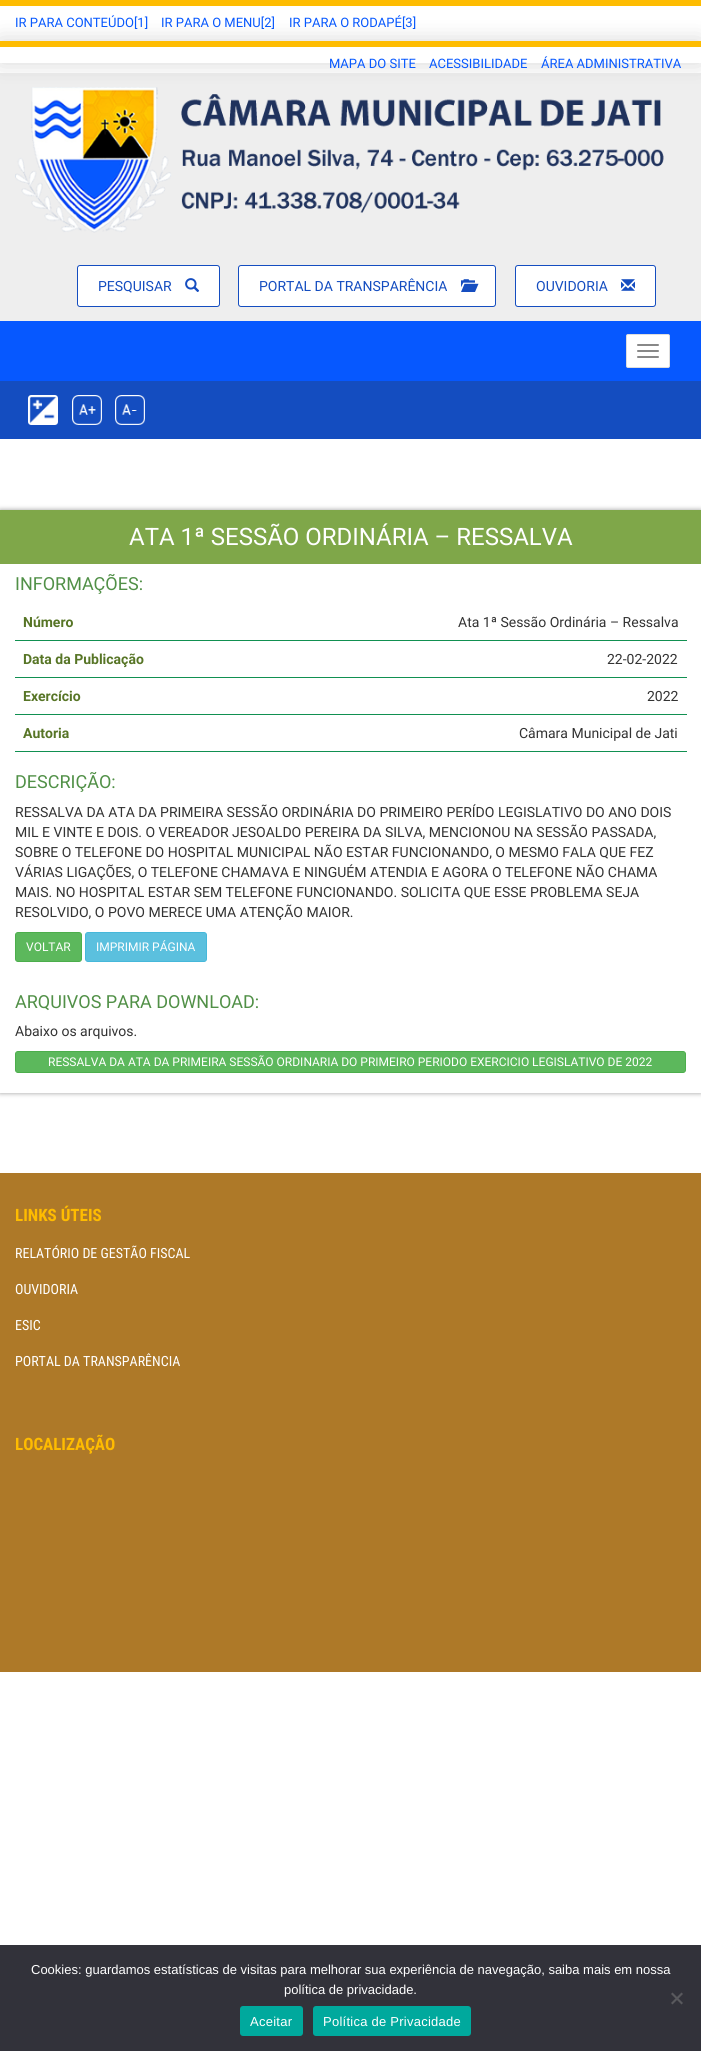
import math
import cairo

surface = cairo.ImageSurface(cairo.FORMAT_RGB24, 701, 2051)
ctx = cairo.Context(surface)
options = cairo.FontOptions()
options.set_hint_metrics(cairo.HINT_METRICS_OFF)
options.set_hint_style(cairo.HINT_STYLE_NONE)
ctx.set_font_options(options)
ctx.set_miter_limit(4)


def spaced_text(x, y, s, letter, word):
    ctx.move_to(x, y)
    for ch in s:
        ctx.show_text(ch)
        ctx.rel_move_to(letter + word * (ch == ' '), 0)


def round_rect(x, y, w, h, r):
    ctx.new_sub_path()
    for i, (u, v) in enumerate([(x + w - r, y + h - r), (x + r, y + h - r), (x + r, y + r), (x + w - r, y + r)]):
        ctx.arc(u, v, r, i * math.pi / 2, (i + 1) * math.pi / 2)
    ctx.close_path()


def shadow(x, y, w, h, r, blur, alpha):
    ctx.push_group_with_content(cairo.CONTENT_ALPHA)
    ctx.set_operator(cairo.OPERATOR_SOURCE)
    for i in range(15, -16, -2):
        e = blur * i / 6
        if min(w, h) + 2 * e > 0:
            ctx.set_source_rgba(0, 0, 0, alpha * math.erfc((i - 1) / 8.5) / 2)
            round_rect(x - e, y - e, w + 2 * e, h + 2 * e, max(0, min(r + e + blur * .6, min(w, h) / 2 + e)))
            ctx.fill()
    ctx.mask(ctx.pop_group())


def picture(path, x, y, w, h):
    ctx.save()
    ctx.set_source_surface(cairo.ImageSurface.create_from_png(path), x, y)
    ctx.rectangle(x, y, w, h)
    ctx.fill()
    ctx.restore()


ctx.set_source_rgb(1, 1, 1)
ctx.paint()
ctx.set_source_rgb(0.996, 0.737, 0.004)
ctx.rectangle(0, 0, 701, 6)
ctx.fill()
ctx.select_font_face("Roboto")
ctx.set_font_size(13)
ctx.set_source_rgb(0.024, 0.345, 1)
ctx.move_to(15, 27)
ctx.show_text("IR PARA CONTEÚDO[1]")
ctx.move_to(161, 27)
ctx.show_text("IR PARA O MENU[2]")
ctx.move_to(289, 27)
ctx.show_text("IR PARA O RODAPÉ[3]")
ctx.set_source_rgb(0.933, 0.933, 0.933)
ctx.rectangle(0, 73, 701, 248)
ctx.fill()
ctx.set_source_rgb(0, 0, 0)
shadow(0, 41, 701, 22, 0, 11.5, 0.16)
ctx.set_source_rgb(1, 1, 1)
ctx.rectangle(0, 47, 701, 16)
ctx.fill()
ctx.set_source_rgb(0.996, 0.737, 0.004)
ctx.rectangle(0, 41, 701, 6)
ctx.fill()
ctx.set_source_rgb(0.024, 0.345, 1)
ctx.move_to(329, 68)
ctx.show_text("MAPA DO SITE")
ctx.move_to(429, 68)
ctx.show_text("ACESSIBILIDADE")
ctx.move_to(541, 68)
ctx.show_text("ÁREA ADMINISTRATIVA")
picture("img1.png", 15, 87, 649, 146)
ctx.set_source_rgb(1, 1, 1)
round_rect(77.5, 265.5, 142, 41, 2.5)
ctx.fill_preserve()
ctx.set_source_rgb(0.082, 0.302, 0.753)
ctx.set_line_width(1)
ctx.stroke()
ctx.set_font_size(14)
ctx.move_to(98, 291)
ctx.show_text("PESQUISAR")
picture("img2.png", 185, 278, 15, 14)
ctx.set_source_rgb(1, 1, 1)
round_rect(238.5, 265.5, 257, 41, 2.5)
ctx.fill_preserve()
ctx.set_source_rgb(0.082, 0.302, 0.753)
ctx.stroke()
ctx.move_to(259, 291)
ctx.show_text("PORTAL DA TRANSPARÊNCIA")
picture("img3.png", 461, 279, 18, 13)
ctx.set_source_rgb(1, 1, 1)
round_rect(515.5, 265.5, 140, 41, 2.5)
ctx.fill_preserve()
ctx.set_source_rgb(0.082, 0.302, 0.753)
ctx.stroke()
ctx.move_to(536, 291)
ctx.show_text("OUVIDORIA")
picture("img4.png", 621, 279, 14, 12)
ctx.set_source_rgb(0.024, 0.345, 1)
ctx.rectangle(0, 321, 701, 60)
ctx.fill()
ctx.set_source_rgb(1, 1, 1)
round_rect(626.5, 334.5, 43, 33, 1.5)
ctx.fill_preserve()
ctx.set_source_rgb(0.867, 0.867, 0.867)
ctx.stroke()
ctx.set_source_rgb(0.533, 0.533, 0.533)
round_rect(637, 344, 22, 2, 1)
ctx.fill()
round_rect(637, 350, 22, 2, 1)
ctx.fill()
round_rect(637, 356, 22, 2, 1)
ctx.fill()
ctx.set_source_rgb(0.082, 0.302, 0.753)
ctx.rectangle(0, 381, 701, 58)
ctx.fill()
picture("img5.png", 28, 395, 30, 30)
picture("img6.png", 72, 395, 30, 30)
picture("img7.png", 115, 395, 30, 30)
ctx.save()
ctx.set_fill_rule(cairo.FILL_RULE_EVEN_ODD)
ctx.new_path()
ctx.move_to(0, 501)
ctx.line_to(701, 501)
ctx.line_to(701, 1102)
ctx.line_to(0, 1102)
ctx.close_path()
ctx.move_to(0, 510)
ctx.line_to(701, 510)
ctx.line_to(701, 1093)
ctx.line_to(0, 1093)
ctx.close_path()
ctx.clip()
ctx.set_source_rgb(0, 0, 0)
shadow(0, 510, 701, 583, 0, 2.5, 0.39)
ctx.restore()
ctx.set_source_rgb(0.498, 0.655, 0.286)
ctx.rectangle(0, 510, 701, 54)
ctx.fill()
ctx.set_font_size(24)
ctx.set_source_rgb(1, 1, 1)
ctx.move_to(129, 545)
ctx.show_text("ATA 1ª SESSÃO ORDINÁRIA – RESSALVA")
ctx.set_font_size(18)
ctx.set_source_rgb(0.318, 0.565, 0.278)
ctx.move_to(15, 590)
ctx.show_text("INFORMAÇÕES:")
ctx.select_font_face("Roboto", cairo.FONT_SLANT_NORMAL, cairo.FONT_WEIGHT_BOLD)
ctx.set_font_size(14)
ctx.set_source_rgb(0.341, 0.459, 0.149)
ctx.move_to(23, 627)
ctx.show_text("Número")
ctx.set_source_rgb(0.067, 0.565, 0.318)
ctx.rectangle(15, 640, 672, 1)
ctx.fill()
ctx.select_font_face("Roboto")
ctx.set_source_rgb(0.2, 0.2, 0.2)
ctx.move_to(458, 627)
ctx.show_text("Ata 1ª Sessão Ordinária – Ressalva")
ctx.select_font_face("Roboto", cairo.FONT_SLANT_NORMAL, cairo.FONT_WEIGHT_BOLD)
ctx.set_source_rgb(0.341, 0.459, 0.149)
ctx.move_to(23, 664)
ctx.show_text("Data da Publicação")
ctx.set_source_rgb(0.067, 0.565, 0.318)
ctx.rectangle(15, 677, 672, 1)
ctx.fill()
ctx.select_font_face("Roboto")
ctx.set_source_rgb(0.2, 0.2, 0.2)
ctx.move_to(607, 664)
ctx.show_text("22-02-2022")
ctx.select_font_face("Roboto", cairo.FONT_SLANT_NORMAL, cairo.FONT_WEIGHT_BOLD)
ctx.set_source_rgb(0.341, 0.459, 0.149)
ctx.move_to(23, 701)
ctx.show_text("Exercício")
ctx.set_source_rgb(0.067, 0.565, 0.318)
ctx.rectangle(15, 714, 672, 1)
ctx.fill()
ctx.select_font_face("Roboto")
ctx.set_source_rgb(0.2, 0.2, 0.2)
ctx.move_to(647, 701)
ctx.show_text("2022")
ctx.select_font_face("Roboto", cairo.FONT_SLANT_NORMAL, cairo.FONT_WEIGHT_BOLD)
ctx.set_source_rgb(0.341, 0.459, 0.149)
ctx.move_to(23, 738)
ctx.show_text("Autoria")
ctx.set_source_rgb(0.067, 0.565, 0.318)
ctx.rectangle(15, 751, 672, 1)
ctx.fill()
ctx.select_font_face("Roboto")
ctx.set_source_rgb(0.2, 0.2, 0.2)
ctx.move_to(519, 738)
ctx.show_text("Câmara Municipal de Jati")
ctx.set_font_size(18)
ctx.set_source_rgb(0.318, 0.565, 0.278)
ctx.move_to(15, 788)
ctx.show_text("DESCRIÇÃO:")
ctx.set_font_size(14)
ctx.set_source_rgb(0.2, 0.2, 0.2)
ctx.move_to(15, 817)
ctx.show_text("RESSALVA DA ATA DA PRIMEIRA SESSÃO ORDINÁRIA DO PRIMEIRO PERÍDO LEGISLATIVO DO ANO DOIS")
ctx.move_to(15, 837)
ctx.show_text("MIL E VINTE E DOIS. O VEREADOR JESOALDO PEREIRA DA SILVA, MENCIONOU NA SESSÃO PASSADA,")
ctx.move_to(15, 857)
ctx.show_text("SOBRE O TELEFONE DO HOSPITAL MUNICIPAL NÃO ESTAR FUNCIONANDO, O MESMO FALA QUE FEZ")
ctx.move_to(15, 877)
ctx.show_text("VÁRIAS LIGAÇÕES, O TELEFONE CHAMAVA E NINGUÉM ATENDIA E AGORA O TELEFONE NÃO CHAMA")
ctx.move_to(15, 897)
ctx.show_text("MAIS. NO HOSPITAL ESTAR SEM TELEFONE FUNCIONANDO. SOLICITA QUE ESSE PROBLEMA SEJA")
ctx.move_to(15, 917)
ctx.show_text("RESOLVIDO, O POVO MERECE UMA ATENÇÃO MAIOR.")
ctx.set_source_rgb(0.361, 0.722, 0.361)
round_rect(15.5, 932.5, 66, 29, 2.5)
ctx.fill_preserve()
ctx.set_source_rgb(0.298, 0.682, 0.298)
ctx.stroke()
ctx.set_font_size(12)
ctx.set_source_rgb(1, 1, 1)
ctx.move_to(26, 951)
ctx.show_text("VOLTAR")
ctx.set_source_rgb(0.357, 0.753, 0.871)
round_rect(85.5, 932.5, 121, 29, 2.5)
ctx.fill_preserve()
ctx.set_source_rgb(0.275, 0.722, 0.855)
ctx.stroke()
ctx.set_source_rgb(1, 1, 1)
ctx.move_to(96, 951)
ctx.show_text("IMPRIMIR PÁGINA")
ctx.set_font_size(18)
ctx.set_source_rgb(0.318, 0.565, 0.278)
ctx.move_to(15, 1008)
ctx.show_text("ARQUIVOS PARA DOWNLOAD:")
ctx.set_font_size(14)
ctx.set_source_rgb(0.2, 0.2, 0.2)
ctx.move_to(15, 1036)
ctx.show_text("Abaixo os arquivos.")
ctx.set_source_rgb(0.361, 0.722, 0.361)
round_rect(15.5, 1051.5, 670, 21, 2.5)
ctx.fill_preserve()
ctx.set_source_rgb(0.298, 0.682, 0.298)
ctx.stroke()
ctx.set_font_size(12)
ctx.set_source_rgb(1, 1, 1)
ctx.move_to(48, 1066)
ctx.show_text("RESSALVA DA ATA DA PRIMEIRA SESSÃO ORDINARIA DO PRIMEIRO PERIODO EXERCICIO LEGISLATIVO DE 2022")
ctx.set_source_rgb(0.682, 0.475, 0.157)
ctx.rectangle(0, 1173, 701, 499)
ctx.fill()
ctx.select_font_face("Roboto Condensed", cairo.FONT_SLANT_NORMAL, cairo.FONT_WEIGHT_BOLD)
ctx.set_font_size(17)
ctx.set_source_rgb(1, 0.737, 0)
ctx.move_to(15, 1221)
ctx.show_text("LINKS ÚTEIS")
ctx.select_font_face("Roboto Condensed")
ctx.set_font_size(14)
ctx.set_source_rgb(1, 1, 1)
ctx.move_to(15, 1258)
ctx.show_text("RELATÓRIO DE GESTÃO FISCAL")
ctx.move_to(15, 1294)
ctx.show_text("OUVIDORIA")
ctx.move_to(15, 1330)
ctx.show_text("ESIC")
ctx.move_to(15, 1366)
ctx.show_text("PORTAL DA TRANSPARÊNCIA")
ctx.select_font_face("Roboto Condensed", cairo.FONT_SLANT_NORMAL, cairo.FONT_WEIGHT_BOLD)
ctx.set_font_size(17)
ctx.set_source_rgb(1, 0.737, 0)
ctx.move_to(15, 1450)
ctx.show_text("LOCALIZAÇÃO")
ctx.set_source_rgb(0.196, 0.196, 0.227)
ctx.rectangle(0, 1945, 701, 106)
ctx.fill()
ctx.select_font_face("Liberation Sans")
ctx.set_font_size(13)
ctx.set_source_rgb(1, 1, 1)
ctx.move_to(31, 1974)
ctx.show_text("Cookies: guardamos estatísticas de visitas para melhorar sua experiência de navegação, saiba mais em nossa")
ctx.move_to(284, 1994)
ctx.show_text("política de privacidade.")
ctx.set_source_rgb(0.349, 0.349, 0.365)
ctx.new_path()
ctx.move_to(681.5, 1992.5)
ctx.line_to(683, 1994)
ctx.line_to(672.5, 2004.5)
ctx.line_to(671, 2003)
ctx.close_path()
ctx.fill()
ctx.new_path()
ctx.move_to(671, 1994)
ctx.line_to(672.5, 1992.5)
ctx.line_to(683, 2003)
ctx.line_to(681.5, 2004.5)
ctx.close_path()
ctx.fill()
ctx.set_source_rgb(0, 0.663, 0.616)
round_rect(240, 2006, 63, 30, 3)
ctx.fill()
ctx.set_source_rgb(1, 1, 1)
spaced_text(250, 2026, "Aceitar", 0.25, 0)
ctx.set_source_rgb(0, 0.663, 0.616)
round_rect(313, 2006, 158, 30, 3)
ctx.fill()
ctx.set_source_rgb(1, 1, 1)
spaced_text(323, 2026, "Política de Privacidade", 0.25, 0)
surface.write_to_png("page.png")
